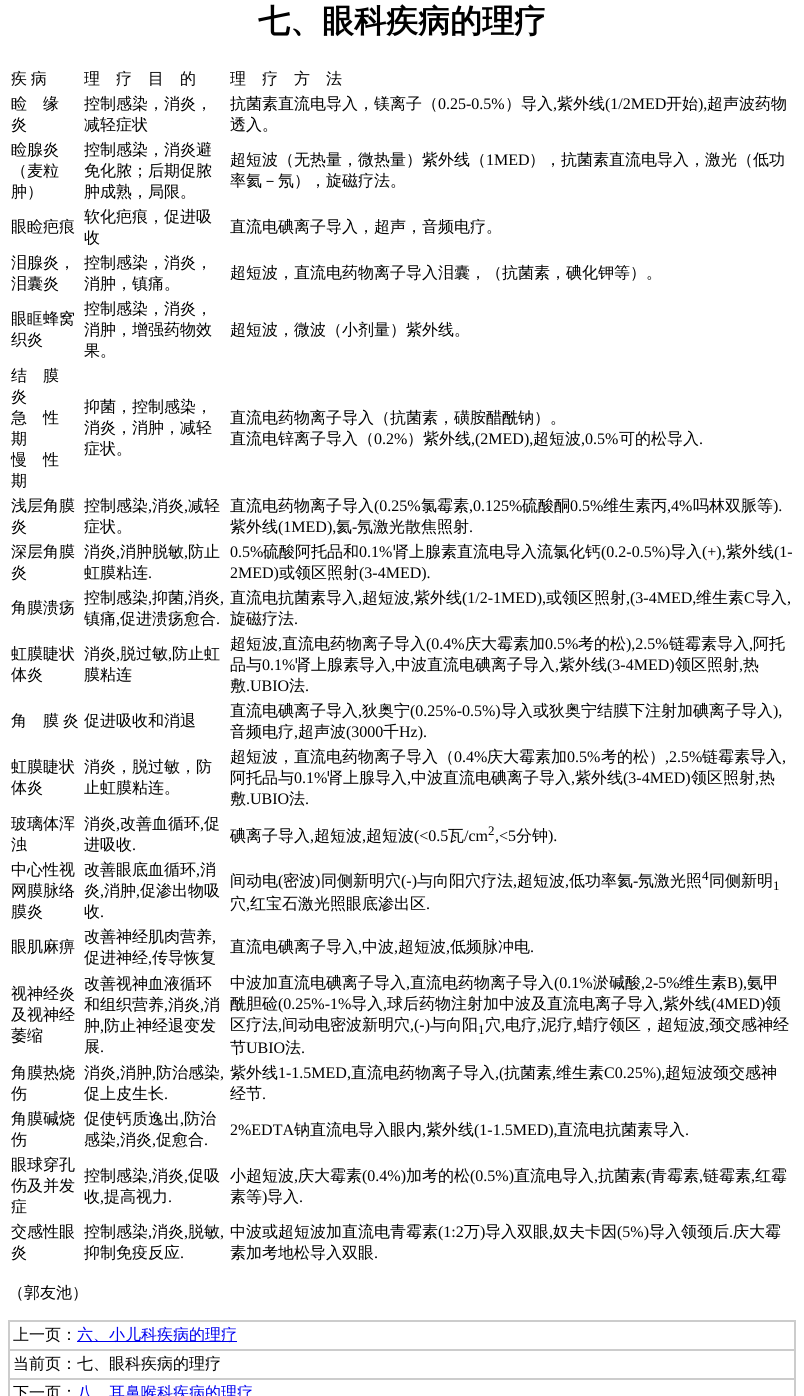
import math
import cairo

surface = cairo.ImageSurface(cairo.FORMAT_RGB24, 804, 1396)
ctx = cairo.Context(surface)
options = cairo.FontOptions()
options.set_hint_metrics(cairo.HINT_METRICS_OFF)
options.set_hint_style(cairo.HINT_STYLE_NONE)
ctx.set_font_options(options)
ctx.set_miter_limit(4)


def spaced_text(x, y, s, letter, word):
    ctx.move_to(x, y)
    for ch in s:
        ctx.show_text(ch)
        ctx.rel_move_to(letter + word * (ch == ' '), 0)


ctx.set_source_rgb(1, 1, 1)
ctx.paint()
ctx.select_font_face("WenQuanYi Zen Hei", cairo.FONT_SLANT_NORMAL, cairo.FONT_WEIGHT_BOLD)
ctx.set_font_size(32)
ctx.set_source_rgb(0, 0, 0)
ctx.move_to(258, 32)
ctx.show_text("七、眼科疾病的理疗")
ctx.select_font_face("WenQuanYi Zen Hei Medium")
ctx.set_font_size(16)
spaced_text(11, 84, "疾 病", 0, -1)
ctx.move_to(84, 84)
ctx.show_text("理　疗　目　的")
ctx.move_to(230, 84)
ctx.show_text("理　疗　方　法")
ctx.move_to(11, 109)
ctx.show_text("睑　缘")
ctx.move_to(11, 130)
ctx.show_text("炎")
ctx.move_to(84, 109)
ctx.show_text("控制感染，消炎，")
ctx.move_to(84, 130)
ctx.show_text("减轻症状")
ctx.move_to(230, 109)
ctx.show_text("抗菌素直流电导入，镁离子（")
ctx.select_font_face("Liberation Serif")
ctx.move_to(438, 109)
ctx.show_text("0.25-0.5%")
ctx.select_font_face("WenQuanYi Zen Hei Medium")
ctx.move_to(505, 109)
ctx.show_text("）导入")
ctx.select_font_face("Liberation Serif")
ctx.move_to(553, 109)
ctx.show_text(",")
ctx.select_font_face("WenQuanYi Zen Hei Medium")
ctx.move_to(557, 109)
ctx.show_text("紫外线")
ctx.select_font_face("Liberation Serif")
ctx.move_to(605, 109)
ctx.show_text("(1/2MED")
ctx.select_font_face("WenQuanYi Zen Hei Medium")
ctx.move_to(666, 109)
ctx.show_text("开始")
ctx.select_font_face("Liberation Serif")
ctx.move_to(698, 109)
ctx.show_text("),")
ctx.select_font_face("WenQuanYi Zen Hei Medium")
ctx.move_to(707, 109)
ctx.show_text("超声波药物")
ctx.move_to(230, 130)
ctx.show_text("透入。")
ctx.move_to(11, 155)
ctx.show_text("睑腺炎")
ctx.move_to(11, 176)
ctx.show_text("（麦粒")
ctx.move_to(11, 197)
ctx.show_text("肿）")
ctx.move_to(84, 155)
ctx.show_text("控制感染，消炎避")
ctx.move_to(84, 176)
ctx.show_text("免化脓；后期促脓")
ctx.move_to(84, 197)
ctx.show_text("肿成熟，局限。")
ctx.move_to(230, 165)
ctx.show_text("超短波（无热量，微热量）紫外线（")
ctx.select_font_face("Liberation Serif")
ctx.move_to(486, 165)
ctx.show_text("1MED")
ctx.select_font_face("WenQuanYi Zen Hei Medium")
ctx.move_to(529, 165)
ctx.show_text("），抗菌素直流电导入，激光（低功")
ctx.move_to(230, 186)
ctx.show_text("率氦－氖），旋磁疗法。")
ctx.move_to(11, 232)
ctx.show_text("眼睑疤痕")
ctx.move_to(84, 222)
ctx.show_text("软化疤痕，促进吸")
ctx.move_to(84, 243)
ctx.show_text("收")
ctx.move_to(230, 232)
ctx.show_text("直流电碘离子导入，超声，音频电疗。")
ctx.move_to(11, 268)
ctx.show_text("泪腺炎，")
ctx.move_to(11, 289)
ctx.show_text("泪囊炎")
ctx.move_to(84, 268)
ctx.show_text("控制感染，消炎，")
ctx.move_to(84, 289)
ctx.show_text("消肿，镇痛。")
ctx.move_to(230, 278)
ctx.show_text("超短波，直流电药物离子导入泪囊，（抗菌素，碘化钾等）。")
ctx.move_to(11, 324)
ctx.show_text("眼眶蜂窝")
ctx.move_to(11, 345)
ctx.show_text("织炎")
ctx.move_to(84, 314)
ctx.show_text("控制感染，消炎，")
ctx.move_to(84, 335)
ctx.show_text("消肿，增强药物效")
ctx.move_to(84, 356)
ctx.show_text("果。")
ctx.move_to(230, 335)
ctx.show_text("超短波，微波（小剂量）紫外线。")
ctx.move_to(11, 381)
ctx.show_text("结　膜")
ctx.move_to(11, 402)
ctx.show_text("炎")
ctx.move_to(11, 423)
ctx.show_text("急　性")
ctx.move_to(11, 444)
ctx.show_text("期")
ctx.move_to(11, 465)
ctx.show_text("慢　性")
ctx.move_to(11, 486)
ctx.show_text("期")
ctx.move_to(84, 412)
ctx.show_text("抑菌，控制感染，")
ctx.move_to(84, 433)
ctx.show_text("消炎，消肿，减轻")
ctx.move_to(84, 454)
ctx.show_text("症状。")
ctx.move_to(230, 423)
ctx.show_text("直流电药物离子导入（抗菌素，磺胺醋酰钠）。")
ctx.move_to(230, 444)
ctx.show_text("直流电锌离子导入（")
ctx.select_font_face("Liberation Serif")
ctx.move_to(374, 444)
ctx.show_text("0.2%")
ctx.select_font_face("WenQuanYi Zen Hei Medium")
ctx.move_to(407, 444)
ctx.show_text("）紫外线")
ctx.select_font_face("Liberation Serif")
ctx.move_to(471, 444)
ctx.show_text(",(2MED),")
ctx.select_font_face("WenQuanYi Zen Hei Medium")
ctx.move_to(533, 444)
ctx.show_text("超短波")
ctx.select_font_face("Liberation Serif")
ctx.move_to(581, 444)
ctx.show_text(",0.5%")
ctx.select_font_face("WenQuanYi Zen Hei Medium")
ctx.move_to(619, 444)
ctx.show_text("可的松导入")
ctx.select_font_face("Liberation Serif")
ctx.move_to(699, 444)
ctx.show_text(".")
ctx.select_font_face("WenQuanYi Zen Hei Medium")
ctx.move_to(11, 511)
ctx.show_text("浅层角膜")
ctx.move_to(11, 532)
ctx.show_text("炎")
ctx.move_to(84, 511)
ctx.show_text("控制感染")
ctx.select_font_face("Liberation Serif")
ctx.move_to(148, 511)
ctx.show_text(",")
ctx.select_font_face("WenQuanYi Zen Hei Medium")
ctx.move_to(152, 511)
ctx.show_text("消炎")
ctx.select_font_face("Liberation Serif")
ctx.move_to(184, 511)
ctx.show_text(",")
ctx.select_font_face("WenQuanYi Zen Hei Medium")
ctx.move_to(188, 511)
ctx.show_text("减轻")
ctx.move_to(84, 532)
ctx.show_text("症状。")
ctx.move_to(230, 511)
ctx.show_text("直流电药物离子导入")
ctx.select_font_face("Liberation Serif")
ctx.move_to(374, 511)
ctx.show_text("(0.25%")
ctx.select_font_face("WenQuanYi Zen Hei Medium")
ctx.move_to(421, 511)
ctx.show_text("氯霉素")
ctx.select_font_face("Liberation Serif")
ctx.move_to(469, 511)
ctx.show_text(",0.125%")
ctx.select_font_face("WenQuanYi Zen Hei Medium")
ctx.move_to(522, 511)
ctx.show_text("硫酸酮")
ctx.select_font_face("Liberation Serif")
ctx.move_to(570, 511)
ctx.show_text("0.5%")
ctx.select_font_face("WenQuanYi Zen Hei Medium")
ctx.move_to(603, 511)
ctx.show_text("维生素丙")
ctx.select_font_face("Liberation Serif")
ctx.move_to(667, 511)
ctx.show_text(",4%")
ctx.select_font_face("WenQuanYi Zen Hei Medium")
ctx.move_to(693, 511)
ctx.show_text("吗林双脈等")
ctx.select_font_face("Liberation Serif")
ctx.move_to(773, 511)
ctx.show_text(").")
ctx.select_font_face("WenQuanYi Zen Hei Medium")
ctx.move_to(230, 532)
ctx.show_text("紫外线")
ctx.select_font_face("Liberation Serif")
ctx.move_to(278, 532)
ctx.show_text("(1MED),")
ctx.select_font_face("WenQuanYi Zen Hei Medium")
ctx.move_to(336, 532)
ctx.show_text("氦")
ctx.select_font_face("Liberation Serif")
ctx.move_to(352, 532)
ctx.show_text("-")
ctx.select_font_face("WenQuanYi Zen Hei Medium")
ctx.move_to(357, 532)
ctx.show_text("氖激光散焦照射")
ctx.select_font_face("Liberation Serif")
ctx.move_to(469, 532)
ctx.show_text(".")
ctx.select_font_face("WenQuanYi Zen Hei Medium")
ctx.move_to(11, 557)
ctx.show_text("深层角膜")
ctx.move_to(11, 578)
ctx.show_text("炎")
ctx.move_to(84, 557)
ctx.show_text("消炎")
ctx.select_font_face("Liberation Serif")
ctx.move_to(116, 557)
ctx.show_text(",")
ctx.select_font_face("WenQuanYi Zen Hei Medium")
ctx.move_to(120, 557)
ctx.show_text("消肿脱敏")
ctx.select_font_face("Liberation Serif")
ctx.move_to(184, 557)
ctx.show_text(",")
ctx.select_font_face("WenQuanYi Zen Hei Medium")
ctx.move_to(188, 557)
ctx.show_text("防止")
ctx.move_to(84, 578)
ctx.show_text("虹膜粘连")
ctx.select_font_face("Liberation Serif")
ctx.move_to(148, 578)
ctx.show_text(".")
ctx.move_to(230, 557)
ctx.show_text("0.5%")
ctx.select_font_face("WenQuanYi Zen Hei Medium")
ctx.move_to(263, 557)
ctx.show_text("硫酸阿托品和")
ctx.select_font_face("Liberation Serif")
ctx.move_to(359, 557)
ctx.show_text("0.1%")
ctx.select_font_face("WenQuanYi Zen Hei Medium")
ctx.move_to(393, 557)
ctx.show_text("肾上腺素直流电导入流氯化钙")
ctx.select_font_face("Liberation Serif")
ctx.move_to(601, 557)
ctx.show_text("(0.2-0.5%)")
ctx.select_font_face("WenQuanYi Zen Hei Medium")
ctx.move_to(670, 557)
ctx.show_text("导入")
ctx.select_font_face("Liberation Serif")
ctx.move_to(702, 557)
ctx.show_text("(+),")
ctx.select_font_face("WenQuanYi Zen Hei Medium")
ctx.move_to(726, 557)
ctx.show_text("紫外线")
ctx.select_font_face("Liberation Serif")
ctx.move_to(774, 557)
ctx.show_text("(1-")
ctx.move_to(230, 578)
ctx.show_text("2MED)")
ctx.select_font_face("WenQuanYi Zen Hei Medium")
ctx.move_to(279, 578)
ctx.show_text("或领区照射")
ctx.select_font_face("Liberation Serif")
ctx.move_to(359, 578)
ctx.show_text("(3-4MED).")
ctx.select_font_face("WenQuanYi Zen Hei Medium")
ctx.move_to(11, 613)
ctx.show_text("角膜溃疡")
ctx.move_to(84, 603)
ctx.show_text("控制感染")
ctx.select_font_face("Liberation Serif")
ctx.move_to(148, 603)
ctx.show_text(",")
ctx.select_font_face("WenQuanYi Zen Hei Medium")
ctx.move_to(152, 603)
ctx.show_text("抑菌")
ctx.select_font_face("Liberation Serif")
ctx.move_to(184, 603)
ctx.show_text(",")
ctx.select_font_face("WenQuanYi Zen Hei Medium")
ctx.move_to(188, 603)
ctx.show_text("消炎")
ctx.select_font_face("Liberation Serif")
ctx.move_to(220, 603)
ctx.show_text(",")
ctx.select_font_face("WenQuanYi Zen Hei Medium")
ctx.move_to(84, 624)
ctx.show_text("镇痛")
ctx.select_font_face("Liberation Serif")
ctx.move_to(116, 624)
ctx.show_text(",")
ctx.select_font_face("WenQuanYi Zen Hei Medium")
ctx.move_to(120, 624)
ctx.show_text("促进溃疡愈合")
ctx.select_font_face("Liberation Serif")
ctx.move_to(216, 624)
ctx.show_text(".")
ctx.select_font_face("WenQuanYi Zen Hei Medium")
ctx.move_to(230, 603)
ctx.show_text("直流电抗菌素导入")
ctx.select_font_face("Liberation Serif")
ctx.move_to(358, 603)
ctx.show_text(",")
ctx.select_font_face("WenQuanYi Zen Hei Medium")
ctx.move_to(362, 603)
ctx.show_text("超短波")
ctx.select_font_face("Liberation Serif")
ctx.move_to(410, 603)
ctx.show_text(",")
ctx.select_font_face("WenQuanYi Zen Hei Medium")
ctx.move_to(414, 603)
ctx.show_text("紫外线")
ctx.select_font_face("Liberation Serif")
ctx.move_to(462, 603)
ctx.show_text("(1/2-1MED),")
ctx.select_font_face("WenQuanYi Zen Hei Medium")
ctx.move_to(546, 603)
ctx.show_text("或领区照射")
ctx.select_font_face("Liberation Serif")
ctx.move_to(626, 603)
ctx.show_text(",(3-4MED,")
ctx.select_font_face("WenQuanYi Zen Hei Medium")
ctx.move_to(696, 603)
ctx.show_text("维生素")
ctx.select_font_face("Liberation Serif")
ctx.move_to(744, 603)
ctx.show_text("C")
ctx.select_font_face("WenQuanYi Zen Hei Medium")
ctx.move_to(755, 603)
ctx.show_text("导入")
ctx.select_font_face("Liberation Serif")
ctx.move_to(787, 603)
ctx.show_text(",")
ctx.select_font_face("WenQuanYi Zen Hei Medium")
ctx.move_to(230, 624)
ctx.show_text("旋磁疗法")
ctx.select_font_face("Liberation Serif")
ctx.move_to(294, 624)
ctx.show_text(".")
ctx.select_font_face("WenQuanYi Zen Hei Medium")
ctx.move_to(11, 659)
ctx.show_text("虹膜睫状")
ctx.move_to(11, 680)
ctx.show_text("体炎")
ctx.move_to(84, 659)
ctx.show_text("消炎")
ctx.select_font_face("Liberation Serif")
ctx.move_to(116, 659)
ctx.show_text(",")
ctx.select_font_face("WenQuanYi Zen Hei Medium")
ctx.move_to(120, 659)
ctx.show_text("脱过敏")
ctx.select_font_face("Liberation Serif")
ctx.move_to(168, 659)
ctx.show_text(",")
ctx.select_font_face("WenQuanYi Zen Hei Medium")
ctx.move_to(172, 659)
ctx.show_text("防止虹")
ctx.move_to(84, 680)
ctx.show_text("膜粘连")
ctx.move_to(230, 649)
ctx.show_text("超短波")
ctx.select_font_face("Liberation Serif")
ctx.move_to(278, 649)
ctx.show_text(",")
ctx.select_font_face("WenQuanYi Zen Hei Medium")
ctx.move_to(282, 649)
ctx.show_text("直流电药物离子导入")
ctx.select_font_face("Liberation Serif")
ctx.move_to(426, 649)
ctx.show_text("(0.4%")
ctx.select_font_face("WenQuanYi Zen Hei Medium")
ctx.move_to(465, 649)
ctx.show_text("庆大霉素加")
ctx.select_font_face("Liberation Serif")
ctx.move_to(545, 649)
ctx.show_text("0.5%")
ctx.select_font_face("WenQuanYi Zen Hei Medium")
ctx.move_to(578, 649)
ctx.show_text("考的松")
ctx.select_font_face("Liberation Serif")
ctx.move_to(626, 649)
ctx.show_text("),2.5%")
ctx.select_font_face("WenQuanYi Zen Hei Medium")
ctx.move_to(669, 649)
ctx.show_text("链霉素导入")
ctx.select_font_face("Liberation Serif")
ctx.move_to(749, 649)
ctx.show_text(",")
ctx.select_font_face("WenQuanYi Zen Hei Medium")
ctx.move_to(753, 649)
ctx.show_text("阿托")
ctx.move_to(230, 670)
ctx.show_text("品与")
ctx.select_font_face("Liberation Serif")
ctx.move_to(262, 670)
ctx.show_text("0.1%")
ctx.select_font_face("WenQuanYi Zen Hei Medium")
ctx.move_to(295, 670)
ctx.show_text("肾上腺素导入")
ctx.select_font_face("Liberation Serif")
ctx.move_to(391, 670)
ctx.show_text(",")
ctx.select_font_face("WenQuanYi Zen Hei Medium")
ctx.move_to(395, 670)
ctx.show_text("中波直流电碘离子导入")
ctx.select_font_face("Liberation Serif")
ctx.move_to(555, 670)
ctx.show_text(",")
ctx.select_font_face("WenQuanYi Zen Hei Medium")
ctx.move_to(559, 670)
ctx.show_text("紫外线")
ctx.select_font_face("Liberation Serif")
ctx.move_to(607, 670)
ctx.show_text("(3-4MED)")
ctx.select_font_face("WenQuanYi Zen Hei Medium")
ctx.move_to(675, 670)
ctx.show_text("领区照射")
ctx.select_font_face("Liberation Serif")
ctx.move_to(739, 670)
ctx.show_text(",")
ctx.select_font_face("WenQuanYi Zen Hei Medium")
ctx.move_to(743, 670)
ctx.show_text("热")
ctx.move_to(230, 691)
ctx.show_text("敷")
ctx.select_font_face("Liberation Serif")
ctx.move_to(246, 691)
ctx.show_text(".UBIO")
ctx.select_font_face("WenQuanYi Zen Hei Medium")
ctx.move_to(289, 691)
ctx.show_text("法")
ctx.select_font_face("Liberation Serif")
ctx.move_to(305, 691)
ctx.show_text(".")
ctx.select_font_face("WenQuanYi Zen Hei Medium")
spaced_text(11, 726, "角　膜 炎", 0, -1)
ctx.move_to(84, 726)
ctx.show_text("促进吸收和消退")
ctx.move_to(230, 716)
ctx.show_text("直流电碘离子导入")
ctx.select_font_face("Liberation Serif")
ctx.move_to(358, 716)
ctx.show_text(",")
ctx.select_font_face("WenQuanYi Zen Hei Medium")
ctx.move_to(362, 716)
ctx.show_text("狄奥宁")
ctx.select_font_face("Liberation Serif")
ctx.move_to(410, 716)
ctx.show_text("(0.25%-0.5%)")
ctx.select_font_face("WenQuanYi Zen Hei Medium")
ctx.move_to(501, 716)
ctx.show_text("导入或狄奥宁结膜下注射加碘离子导入")
ctx.select_font_face("Liberation Serif")
ctx.move_to(773, 716)
ctx.show_text("),")
ctx.select_font_face("WenQuanYi Zen Hei Medium")
ctx.move_to(230, 737)
ctx.show_text("音频电疗")
ctx.select_font_face("Liberation Serif")
ctx.move_to(294, 737)
ctx.show_text(",")
ctx.select_font_face("WenQuanYi Zen Hei Medium")
ctx.move_to(298, 737)
ctx.show_text("超声波")
ctx.select_font_face("Liberation Serif")
ctx.move_to(346, 737)
ctx.show_text("(3000")
ctx.select_font_face("WenQuanYi Zen Hei Medium")
ctx.move_to(383, 737)
ctx.show_text("千")
ctx.select_font_face("Liberation Serif")
ctx.move_to(399, 737)
ctx.show_text("Hz).")
ctx.select_font_face("WenQuanYi Zen Hei Medium")
ctx.move_to(11, 772)
ctx.show_text("虹膜睫状")
ctx.move_to(11, 793)
ctx.show_text("体炎")
ctx.move_to(84, 772)
ctx.show_text("消炎，脱过敏，防")
ctx.move_to(84, 793)
ctx.show_text("止虹膜粘连。")
ctx.move_to(230, 762)
ctx.show_text("超短波，直流电药物离子导入（")
ctx.select_font_face("Liberation Serif")
ctx.move_to(454, 762)
ctx.show_text("0.4%")
ctx.select_font_face("WenQuanYi Zen Hei Medium")
ctx.move_to(487, 762)
ctx.show_text("庆大霉素加")
ctx.select_font_face("Liberation Serif")
ctx.move_to(567, 762)
ctx.show_text("0.5%")
ctx.select_font_face("WenQuanYi Zen Hei Medium")
ctx.move_to(601, 762)
ctx.show_text("考的松）")
ctx.select_font_face("Liberation Serif")
ctx.move_to(665, 762)
ctx.show_text(",2.5%")
ctx.select_font_face("WenQuanYi Zen Hei Medium")
ctx.move_to(702, 762)
ctx.show_text("链霉素导入")
ctx.select_font_face("Liberation Serif")
ctx.move_to(782, 762)
ctx.show_text(",")
ctx.select_font_face("WenQuanYi Zen Hei Medium")
ctx.move_to(230, 783)
ctx.show_text("阿托品与")
ctx.select_font_face("Liberation Serif")
ctx.move_to(294, 783)
ctx.show_text("0.1%")
ctx.select_font_face("WenQuanYi Zen Hei Medium")
ctx.move_to(327, 783)
ctx.show_text("肾上腺导入")
ctx.select_font_face("Liberation Serif")
ctx.move_to(407, 783)
ctx.show_text(",")
ctx.select_font_face("WenQuanYi Zen Hei Medium")
ctx.move_to(411, 783)
ctx.show_text("中波直流电碘离子导入")
ctx.select_font_face("Liberation Serif")
ctx.move_to(571, 783)
ctx.show_text(",")
ctx.select_font_face("WenQuanYi Zen Hei Medium")
ctx.move_to(575, 783)
ctx.show_text("紫外线")
ctx.select_font_face("Liberation Serif")
ctx.move_to(623, 783)
ctx.show_text("(3-4MED)")
ctx.select_font_face("WenQuanYi Zen Hei Medium")
ctx.move_to(691, 783)
ctx.show_text("领区照射")
ctx.select_font_face("Liberation Serif")
ctx.move_to(755, 783)
ctx.show_text(",")
ctx.select_font_face("WenQuanYi Zen Hei Medium")
ctx.move_to(759, 783)
ctx.show_text("热")
ctx.move_to(230, 804)
ctx.show_text("敷")
ctx.select_font_face("Liberation Serif")
ctx.move_to(246, 804)
ctx.show_text(".UBIO")
ctx.select_font_face("WenQuanYi Zen Hei Medium")
ctx.move_to(289, 804)
ctx.show_text("法")
ctx.select_font_face("Liberation Serif")
ctx.move_to(305, 804)
ctx.show_text(".")
ctx.select_font_face("WenQuanYi Zen Hei Medium")
ctx.move_to(11, 829)
ctx.show_text("玻璃体浑")
ctx.move_to(11, 850)
ctx.show_text("浊")
ctx.move_to(84, 829)
ctx.show_text("消炎")
ctx.select_font_face("Liberation Serif")
ctx.move_to(116, 829)
ctx.show_text(",")
ctx.select_font_face("WenQuanYi Zen Hei Medium")
ctx.move_to(120, 829)
ctx.show_text("改善血循环")
ctx.select_font_face("Liberation Serif")
ctx.move_to(200, 829)
ctx.show_text(",")
ctx.select_font_face("WenQuanYi Zen Hei Medium")
ctx.move_to(204, 829)
ctx.show_text("促")
ctx.move_to(84, 850)
ctx.show_text("进吸收")
ctx.select_font_face("Liberation Serif")
ctx.move_to(132, 850)
ctx.show_text(".")
ctx.select_font_face("WenQuanYi Zen Hei Medium")
ctx.move_to(230, 841)
ctx.show_text("碘离子导入")
ctx.select_font_face("Liberation Serif")
ctx.move_to(310, 841)
ctx.show_text(",")
ctx.select_font_face("WenQuanYi Zen Hei Medium")
ctx.move_to(314, 841)
ctx.show_text("超短波")
ctx.select_font_face("Liberation Serif")
ctx.move_to(362, 841)
ctx.show_text(",")
ctx.select_font_face("WenQuanYi Zen Hei Medium")
ctx.move_to(366, 841)
ctx.show_text("超短波")
ctx.select_font_face("Liberation Serif")
ctx.move_to(414, 841)
ctx.show_text("(<0.5")
ctx.select_font_face("WenQuanYi Zen Hei Medium")
ctx.move_to(448, 841)
ctx.show_text("瓦")
ctx.select_font_face("Liberation Serif")
ctx.move_to(464, 841)
ctx.show_text("/cm")
ctx.set_font_size(13)
ctx.move_to(488, 835)
ctx.show_text("2")
ctx.set_font_size(16)
ctx.move_to(495, 841)
ctx.show_text(",<5")
ctx.select_font_face("WenQuanYi Zen Hei Medium")
ctx.move_to(516, 841)
ctx.show_text("分钟")
ctx.select_font_face("Liberation Serif")
ctx.move_to(548, 841)
ctx.show_text(").")
ctx.select_font_face("WenQuanYi Zen Hei Medium")
ctx.move_to(11, 875)
ctx.show_text("中心性视")
ctx.move_to(11, 896)
ctx.show_text("网膜脉络")
ctx.move_to(11, 917)
ctx.show_text("膜炎")
ctx.move_to(84, 875)
ctx.show_text("改善眼底血循环")
ctx.select_font_face("Liberation Serif")
ctx.move_to(196, 875)
ctx.show_text(",")
ctx.select_font_face("WenQuanYi Zen Hei Medium")
ctx.move_to(200, 875)
ctx.show_text("消")
ctx.move_to(84, 896)
ctx.show_text("炎")
ctx.select_font_face("Liberation Serif")
ctx.move_to(100, 896)
ctx.show_text(",")
ctx.select_font_face("WenQuanYi Zen Hei Medium")
ctx.move_to(104, 896)
ctx.show_text("消肿")
ctx.select_font_face("Liberation Serif")
ctx.move_to(136, 896)
ctx.show_text(",")
ctx.select_font_face("WenQuanYi Zen Hei Medium")
ctx.move_to(140, 896)
ctx.show_text("促渗出物吸")
ctx.move_to(84, 917)
ctx.show_text("收")
ctx.select_font_face("Liberation Serif")
ctx.move_to(100, 917)
ctx.show_text(".")
ctx.select_font_face("WenQuanYi Zen Hei Medium")
ctx.move_to(230, 886)
ctx.show_text("间动电")
ctx.select_font_face("Liberation Serif")
ctx.move_to(278, 886)
ctx.show_text("(")
ctx.select_font_face("WenQuanYi Zen Hei Medium")
ctx.move_to(283, 886)
ctx.show_text("密波")
ctx.select_font_face("Liberation Serif")
ctx.move_to(315, 886)
ctx.show_text(")")
ctx.select_font_face("WenQuanYi Zen Hei Medium")
ctx.move_to(321, 886)
ctx.show_text("同侧新明穴")
ctx.select_font_face("Liberation Serif")
ctx.move_to(401, 886)
ctx.show_text("(-)")
ctx.select_font_face("WenQuanYi Zen Hei Medium")
ctx.move_to(417, 886)
ctx.show_text("与向阳穴疗法")
ctx.select_font_face("Liberation Serif")
ctx.move_to(513, 886)
ctx.show_text(",")
ctx.select_font_face("WenQuanYi Zen Hei Medium")
ctx.move_to(517, 886)
ctx.show_text("超短波")
ctx.select_font_face("Liberation Serif")
ctx.move_to(565, 886)
ctx.show_text(",")
ctx.select_font_face("WenQuanYi Zen Hei Medium")
ctx.move_to(569, 886)
ctx.show_text("低功率氦")
ctx.select_font_face("Liberation Serif")
ctx.move_to(633, 886)
ctx.show_text("-")
ctx.select_font_face("WenQuanYi Zen Hei Medium")
ctx.move_to(638, 886)
ctx.show_text("氖激光照")
ctx.select_font_face("Liberation Serif")
ctx.set_font_size(13)
ctx.move_to(702, 880)
ctx.show_text("4")
ctx.select_font_face("WenQuanYi Zen Hei Medium")
ctx.set_font_size(16)
ctx.move_to(709, 886)
ctx.show_text("同侧新明")
ctx.select_font_face("Liberation Serif")
ctx.set_font_size(13)
ctx.move_to(773, 890)
ctx.show_text("1")
ctx.select_font_face("WenQuanYi Zen Hei Medium")
ctx.set_font_size(16)
ctx.move_to(230, 909)
ctx.show_text("穴")
ctx.select_font_face("Liberation Serif")
ctx.move_to(246, 909)
ctx.show_text(",")
ctx.select_font_face("WenQuanYi Zen Hei Medium")
ctx.move_to(250, 909)
ctx.show_text("红宝石激光照眼底渗出区")
ctx.select_font_face("Liberation Serif")
ctx.move_to(426, 909)
ctx.show_text(".")
ctx.select_font_face("WenQuanYi Zen Hei Medium")
ctx.move_to(11, 952)
ctx.show_text("眼肌麻痹")
ctx.move_to(84, 942)
ctx.show_text("改善神经肌肉营养")
ctx.select_font_face("Liberation Serif")
ctx.move_to(212, 942)
ctx.show_text(",")
ctx.select_font_face("WenQuanYi Zen Hei Medium")
ctx.move_to(84, 963)
ctx.show_text("促进神经")
ctx.select_font_face("Liberation Serif")
ctx.move_to(148, 963)
ctx.show_text(",")
ctx.select_font_face("WenQuanYi Zen Hei Medium")
ctx.move_to(152, 963)
ctx.show_text("传导恢复")
ctx.move_to(230, 952)
ctx.show_text("直流电碘离子导入")
ctx.select_font_face("Liberation Serif")
ctx.move_to(358, 952)
ctx.show_text(",")
ctx.select_font_face("WenQuanYi Zen Hei Medium")
ctx.move_to(362, 952)
ctx.show_text("中波")
ctx.select_font_face("Liberation Serif")
ctx.move_to(394, 952)
ctx.show_text(",")
ctx.select_font_face("WenQuanYi Zen Hei Medium")
ctx.move_to(398, 952)
ctx.show_text("超短波")
ctx.select_font_face("Liberation Serif")
ctx.move_to(446, 952)
ctx.show_text(",")
ctx.select_font_face("WenQuanYi Zen Hei Medium")
ctx.move_to(450, 952)
ctx.show_text("低频脉冲电")
ctx.select_font_face("Liberation Serif")
ctx.move_to(530, 952)
ctx.show_text(".")
ctx.select_font_face("WenQuanYi Zen Hei Medium")
ctx.move_to(11, 999)
ctx.show_text("视神经炎")
ctx.move_to(11, 1020)
ctx.show_text("及视神经")
ctx.move_to(11, 1041)
ctx.show_text("萎缩")
ctx.move_to(84, 989)
ctx.show_text("改善视神血液循环")
ctx.move_to(84, 1010)
ctx.show_text("和组织营养")
ctx.select_font_face("Liberation Serif")
ctx.move_to(164, 1010)
ctx.show_text(",")
ctx.select_font_face("WenQuanYi Zen Hei Medium")
ctx.move_to(168, 1010)
ctx.show_text("消炎")
ctx.select_font_face("Liberation Serif")
ctx.move_to(200, 1010)
ctx.show_text(",")
ctx.select_font_face("WenQuanYi Zen Hei Medium")
ctx.move_to(204, 1010)
ctx.show_text("消")
ctx.move_to(84, 1031)
ctx.show_text("肿")
ctx.select_font_face("Liberation Serif")
ctx.move_to(100, 1031)
ctx.show_text(",")
ctx.select_font_face("WenQuanYi Zen Hei Medium")
ctx.move_to(104, 1031)
ctx.show_text("防止神经退变发")
ctx.move_to(84, 1052)
ctx.show_text("展")
ctx.select_font_face("Liberation Serif")
ctx.move_to(100, 1052)
ctx.show_text(".")
ctx.select_font_face("WenQuanYi Zen Hei Medium")
ctx.move_to(230, 988)
ctx.show_text("中波加直流电碘离子导入")
ctx.select_font_face("Liberation Serif")
ctx.move_to(406, 988)
ctx.show_text(",")
ctx.select_font_face("WenQuanYi Zen Hei Medium")
ctx.move_to(410, 988)
ctx.show_text("直流电药物离子导入")
ctx.select_font_face("Liberation Serif")
ctx.move_to(554, 988)
ctx.show_text("(0.1%")
ctx.select_font_face("WenQuanYi Zen Hei Medium")
ctx.move_to(593, 988)
ctx.show_text("淤碱酸")
ctx.select_font_face("Liberation Serif")
ctx.move_to(641, 988)
ctx.show_text(",2-5%")
ctx.select_font_face("WenQuanYi Zen Hei Medium")
ctx.move_to(679, 988)
ctx.show_text("维生素")
ctx.select_font_face("Liberation Serif")
ctx.move_to(727, 988)
ctx.show_text("B),")
ctx.select_font_face("WenQuanYi Zen Hei Medium")
ctx.move_to(747, 988)
ctx.show_text("氨甲")
ctx.move_to(230, 1009)
ctx.show_text("酰胆硷")
ctx.select_font_face("Liberation Serif")
ctx.move_to(278, 1009)
ctx.show_text("(0.25%-1%")
ctx.select_font_face("WenQuanYi Zen Hei Medium")
ctx.move_to(351, 1009)
ctx.show_text("导入")
ctx.select_font_face("Liberation Serif")
ctx.move_to(383, 1009)
ctx.show_text(",")
ctx.select_font_face("WenQuanYi Zen Hei Medium")
ctx.move_to(387, 1009)
ctx.show_text("球后药物注射加中波及直流电离子导入")
ctx.select_font_face("Liberation Serif")
ctx.move_to(659, 1009)
ctx.show_text(",")
ctx.select_font_face("WenQuanYi Zen Hei Medium")
ctx.move_to(663, 1009)
ctx.show_text("紫外线")
ctx.select_font_face("Liberation Serif")
ctx.move_to(711, 1009)
ctx.show_text("(4MED)")
ctx.select_font_face("WenQuanYi Zen Hei Medium")
ctx.move_to(765, 1009)
ctx.show_text("领")
ctx.move_to(230, 1030)
ctx.show_text("区疗法")
ctx.select_font_face("Liberation Serif")
ctx.move_to(278, 1030)
ctx.show_text(",")
ctx.select_font_face("WenQuanYi Zen Hei Medium")
ctx.move_to(282, 1030)
ctx.show_text("间动电密波新明穴")
ctx.select_font_face("Liberation Serif")
ctx.move_to(410, 1030)
ctx.show_text(",(-)")
ctx.select_font_face("WenQuanYi Zen Hei Medium")
ctx.move_to(430, 1030)
ctx.show_text("与向阳")
ctx.select_font_face("Liberation Serif")
ctx.set_font_size(13)
ctx.move_to(478, 1034)
ctx.show_text("1")
ctx.select_font_face("WenQuanYi Zen Hei Medium")
ctx.set_font_size(16)
ctx.move_to(485, 1030)
ctx.show_text("穴")
ctx.select_font_face("Liberation Serif")
ctx.move_to(501, 1030)
ctx.show_text(",")
ctx.select_font_face("WenQuanYi Zen Hei Medium")
ctx.move_to(505, 1030)
ctx.show_text("电疗")
ctx.select_font_face("Liberation Serif")
ctx.move_to(537, 1030)
ctx.show_text(",")
ctx.select_font_face("WenQuanYi Zen Hei Medium")
ctx.move_to(541, 1030)
ctx.show_text("泥疗")
ctx.select_font_face("Liberation Serif")
ctx.move_to(573, 1030)
ctx.show_text(",")
ctx.select_font_face("WenQuanYi Zen Hei Medium")
ctx.move_to(577, 1030)
ctx.show_text("蜡疗领区，超短波")
ctx.select_font_face("Liberation Serif")
ctx.move_to(705, 1030)
ctx.show_text(",")
ctx.select_font_face("WenQuanYi Zen Hei Medium")
ctx.move_to(709, 1030)
ctx.show_text("颈交感神经")
ctx.move_to(230, 1053)
ctx.show_text("节")
ctx.select_font_face("Liberation Serif")
ctx.move_to(246, 1053)
ctx.show_text("UBIO")
ctx.select_font_face("WenQuanYi Zen Hei Medium")
ctx.move_to(285, 1053)
ctx.show_text("法")
ctx.select_font_face("Liberation Serif")
ctx.move_to(301, 1053)
ctx.show_text(".")
ctx.select_font_face("WenQuanYi Zen Hei Medium")
ctx.move_to(11, 1078)
ctx.show_text("角膜热烧")
ctx.move_to(11, 1099)
ctx.show_text("伤")
ctx.move_to(84, 1078)
ctx.show_text("消炎")
ctx.select_font_face("Liberation Serif")
ctx.move_to(116, 1078)
ctx.show_text(",")
ctx.select_font_face("WenQuanYi Zen Hei Medium")
ctx.move_to(120, 1078)
ctx.show_text("消肿")
ctx.select_font_face("Liberation Serif")
ctx.move_to(152, 1078)
ctx.show_text(",")
ctx.select_font_face("WenQuanYi Zen Hei Medium")
ctx.move_to(156, 1078)
ctx.show_text("防治感染")
ctx.select_font_face("Liberation Serif")
ctx.move_to(220, 1078)
ctx.show_text(",")
ctx.select_font_face("WenQuanYi Zen Hei Medium")
ctx.move_to(84, 1099)
ctx.show_text("促上皮生长")
ctx.select_font_face("Liberation Serif")
ctx.move_to(164, 1099)
ctx.show_text(".")
ctx.select_font_face("WenQuanYi Zen Hei Medium")
ctx.move_to(230, 1078)
ctx.show_text("紫外线")
ctx.select_font_face("Liberation Serif")
ctx.move_to(278, 1078)
ctx.show_text("1-1.5MED,")
ctx.select_font_face("WenQuanYi Zen Hei Medium")
ctx.move_to(351, 1078)
ctx.show_text("直流电药物离子导入")
ctx.select_font_face("Liberation Serif")
ctx.move_to(495, 1078)
ctx.show_text(",(")
ctx.select_font_face("WenQuanYi Zen Hei Medium")
ctx.move_to(504, 1078)
ctx.show_text("抗菌素")
ctx.select_font_face("Liberation Serif")
ctx.move_to(552, 1078)
ctx.show_text(",")
ctx.select_font_face("WenQuanYi Zen Hei Medium")
ctx.move_to(556, 1078)
ctx.show_text("维生素")
ctx.select_font_face("Liberation Serif")
ctx.move_to(604, 1078)
ctx.show_text("C0.25%),")
ctx.select_font_face("WenQuanYi Zen Hei Medium")
ctx.move_to(665, 1078)
ctx.show_text("超短波颈交感神")
ctx.move_to(230, 1099)
ctx.show_text("经节")
ctx.select_font_face("Liberation Serif")
ctx.move_to(262, 1099)
ctx.show_text(".")
ctx.select_font_face("WenQuanYi Zen Hei Medium")
ctx.move_to(11, 1124)
ctx.show_text("角膜碱烧")
ctx.move_to(11, 1145)
ctx.show_text("伤")
ctx.move_to(84, 1124)
ctx.show_text("促使钙质逸出")
ctx.select_font_face("Liberation Serif")
ctx.move_to(180, 1124)
ctx.show_text(",")
ctx.select_font_face("WenQuanYi Zen Hei Medium")
ctx.move_to(184, 1124)
ctx.show_text("防治")
ctx.move_to(84, 1145)
ctx.show_text("感染")
ctx.select_font_face("Liberation Serif")
ctx.move_to(116, 1145)
ctx.show_text(",")
ctx.select_font_face("WenQuanYi Zen Hei Medium")
ctx.move_to(120, 1145)
ctx.show_text("消炎")
ctx.select_font_face("Liberation Serif")
ctx.move_to(152, 1145)
ctx.show_text(",")
ctx.select_font_face("WenQuanYi Zen Hei Medium")
ctx.move_to(156, 1145)
ctx.show_text("促愈合")
ctx.select_font_face("Liberation Serif")
ctx.move_to(204, 1145)
ctx.show_text(".")
ctx.move_to(230, 1135)
ctx.show_text("2%EDTA")
ctx.select_font_face("WenQuanYi Zen Hei Medium")
ctx.move_to(294, 1135)
ctx.show_text("钠直流电导入眼内")
ctx.select_font_face("Liberation Serif")
ctx.move_to(422, 1135)
ctx.show_text(",")
ctx.select_font_face("WenQuanYi Zen Hei Medium")
ctx.move_to(426, 1135)
ctx.show_text("紫外线")
ctx.select_font_face("Liberation Serif")
ctx.move_to(474, 1135)
ctx.show_text("(1-1.5MED),")
ctx.select_font_face("WenQuanYi Zen Hei Medium")
ctx.move_to(557, 1135)
ctx.show_text("直流电抗菌素导入")
ctx.select_font_face("Liberation Serif")
ctx.move_to(685, 1135)
ctx.show_text(".")
ctx.select_font_face("WenQuanYi Zen Hei Medium")
ctx.move_to(11, 1170)
ctx.show_text("眼球穿孔")
ctx.move_to(11, 1191)
ctx.show_text("伤及并发")
ctx.move_to(11, 1212)
ctx.show_text("症")
ctx.move_to(84, 1181)
ctx.show_text("控制感染")
ctx.select_font_face("Liberation Serif")
ctx.move_to(148, 1181)
ctx.show_text(",")
ctx.select_font_face("WenQuanYi Zen Hei Medium")
ctx.move_to(152, 1181)
ctx.show_text("消炎")
ctx.select_font_face("Liberation Serif")
ctx.move_to(184, 1181)
ctx.show_text(",")
ctx.select_font_face("WenQuanYi Zen Hei Medium")
ctx.move_to(188, 1181)
ctx.show_text("促吸")
ctx.move_to(84, 1202)
ctx.show_text("收")
ctx.select_font_face("Liberation Serif")
ctx.move_to(100, 1202)
ctx.show_text(",")
ctx.select_font_face("WenQuanYi Zen Hei Medium")
ctx.move_to(104, 1202)
ctx.show_text("提高视力")
ctx.select_font_face("Liberation Serif")
ctx.move_to(168, 1202)
ctx.show_text(".")
ctx.select_font_face("WenQuanYi Zen Hei Medium")
ctx.move_to(230, 1181)
ctx.show_text("小超短波")
ctx.select_font_face("Liberation Serif")
ctx.move_to(294, 1181)
ctx.show_text(",")
ctx.select_font_face("WenQuanYi Zen Hei Medium")
ctx.move_to(298, 1181)
ctx.show_text("庆大霉素")
ctx.select_font_face("Liberation Serif")
ctx.move_to(362, 1181)
ctx.show_text("(0.4%)")
ctx.select_font_face("WenQuanYi Zen Hei Medium")
ctx.move_to(406, 1181)
ctx.show_text("加考的松")
ctx.select_font_face("Liberation Serif")
ctx.move_to(470, 1181)
ctx.show_text("(0.5%)")
ctx.select_font_face("WenQuanYi Zen Hei Medium")
ctx.move_to(514, 1181)
ctx.show_text("直流电导入")
ctx.select_font_face("Liberation Serif")
ctx.move_to(594, 1181)
ctx.show_text(",")
ctx.select_font_face("WenQuanYi Zen Hei Medium")
ctx.move_to(598, 1181)
ctx.show_text("抗菌素")
ctx.select_font_face("Liberation Serif")
ctx.move_to(646, 1181)
ctx.show_text("(")
ctx.select_font_face("WenQuanYi Zen Hei Medium")
ctx.move_to(651, 1181)
ctx.show_text("青霉素")
ctx.select_font_face("Liberation Serif")
ctx.move_to(699, 1181)
ctx.show_text(",")
ctx.select_font_face("WenQuanYi Zen Hei Medium")
ctx.move_to(703, 1181)
ctx.show_text("链霉素")
ctx.select_font_face("Liberation Serif")
ctx.move_to(751, 1181)
ctx.show_text(",")
ctx.select_font_face("WenQuanYi Zen Hei Medium")
ctx.move_to(755, 1181)
ctx.show_text("红霉")
ctx.move_to(230, 1202)
ctx.show_text("素等")
ctx.select_font_face("Liberation Serif")
ctx.move_to(262, 1202)
ctx.show_text(")")
ctx.select_font_face("WenQuanYi Zen Hei Medium")
ctx.move_to(267, 1202)
ctx.show_text("导入")
ctx.select_font_face("Liberation Serif")
ctx.move_to(299, 1202)
ctx.show_text(".")
ctx.select_font_face("WenQuanYi Zen Hei Medium")
ctx.move_to(11, 1237)
ctx.show_text("交感性眼")
ctx.move_to(11, 1258)
ctx.show_text("炎")
ctx.move_to(84, 1237)
ctx.show_text("控制感染")
ctx.select_font_face("Liberation Serif")
ctx.move_to(148, 1237)
ctx.show_text(",")
ctx.select_font_face("WenQuanYi Zen Hei Medium")
ctx.move_to(152, 1237)
ctx.show_text("消炎")
ctx.select_font_face("Liberation Serif")
ctx.move_to(184, 1237)
ctx.show_text(",")
ctx.select_font_face("WenQuanYi Zen Hei Medium")
ctx.move_to(188, 1237)
ctx.show_text("脱敏")
ctx.select_font_face("Liberation Serif")
ctx.move_to(220, 1237)
ctx.show_text(",")
ctx.select_font_face("WenQuanYi Zen Hei Medium")
ctx.move_to(84, 1258)
ctx.show_text("抑制免疫反应")
ctx.select_font_face("Liberation Serif")
ctx.move_to(180, 1258)
ctx.show_text(".")
ctx.select_font_face("WenQuanYi Zen Hei Medium")
ctx.move_to(230, 1237)
ctx.show_text("中波或超短波加直流电青霉素")
ctx.select_font_face("Liberation Serif")
ctx.move_to(438, 1237)
ctx.show_text("(1:2")
ctx.select_font_face("WenQuanYi Zen Hei Medium")
ctx.move_to(464, 1237)
ctx.show_text("万")
ctx.select_font_face("Liberation Serif")
ctx.move_to(480, 1237)
ctx.show_text(")")
ctx.select_font_face("WenQuanYi Zen Hei Medium")
ctx.move_to(485, 1237)
ctx.show_text("导入双眼")
ctx.select_font_face("Liberation Serif")
ctx.move_to(549, 1237)
ctx.show_text(",")
ctx.select_font_face("WenQuanYi Zen Hei Medium")
ctx.move_to(553, 1237)
ctx.show_text("奴夫卡因")
ctx.select_font_face("Liberation Serif")
ctx.move_to(617, 1237)
ctx.show_text("(5%)")
ctx.select_font_face("WenQuanYi Zen Hei Medium")
ctx.move_to(649, 1237)
ctx.show_text("导入领颈后")
ctx.select_font_face("Liberation Serif")
ctx.move_to(729, 1237)
ctx.show_text(".")
ctx.select_font_face("WenQuanYi Zen Hei Medium")
ctx.move_to(733, 1237)
ctx.show_text("庆大霉")
ctx.move_to(230, 1258)
ctx.show_text("素加考地松导入双眼")
ctx.select_font_face("Liberation Serif")
ctx.move_to(374, 1258)
ctx.show_text(".")
ctx.select_font_face("WenQuanYi Zen Hei Medium")
ctx.move_to(8, 1298)
ctx.show_text("（郭友池）")
ctx.rectangle(8.5, 1320.5, 787, 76)
ctx.set_source_rgb(0.8, 0.8, 0.8)
ctx.set_line_width(1)
ctx.stroke()
ctx.rectangle(9.5, 1321.5, 785, 28)
ctx.stroke()
ctx.set_source_rgb(0, 0, 0)
ctx.move_to(13, 1340)
ctx.show_text("上一页：")
ctx.set_source_rgb(0, 0, 0.933)
ctx.rectangle(77, 1341, 160, 1)
ctx.fill()
ctx.move_to(77, 1340)
ctx.show_text("六、小儿科疾病的理疗")
ctx.rectangle(9.5, 1350.5, 785, 28)
ctx.set_source_rgb(0.8, 0.8, 0.8)
ctx.stroke()
ctx.set_source_rgb(0, 0, 0)
ctx.move_to(13, 1369)
ctx.show_text("当前页：七、眼科疾病的理疗")
ctx.rectangle(9.5, 1379.5, 785, 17)
ctx.set_source_rgb(0.8, 0.8, 0.8)
ctx.stroke()
ctx.set_source_rgb(0, 0, 0)
ctx.move_to(13, 1398)
ctx.show_text("下一页：")
ctx.set_source_rgb(0, 0, 0.933)
ctx.move_to(77, 1398)
ctx.show_text("八、耳鼻喉科疾病的理疗")
surface.write_to_png("page.png")
